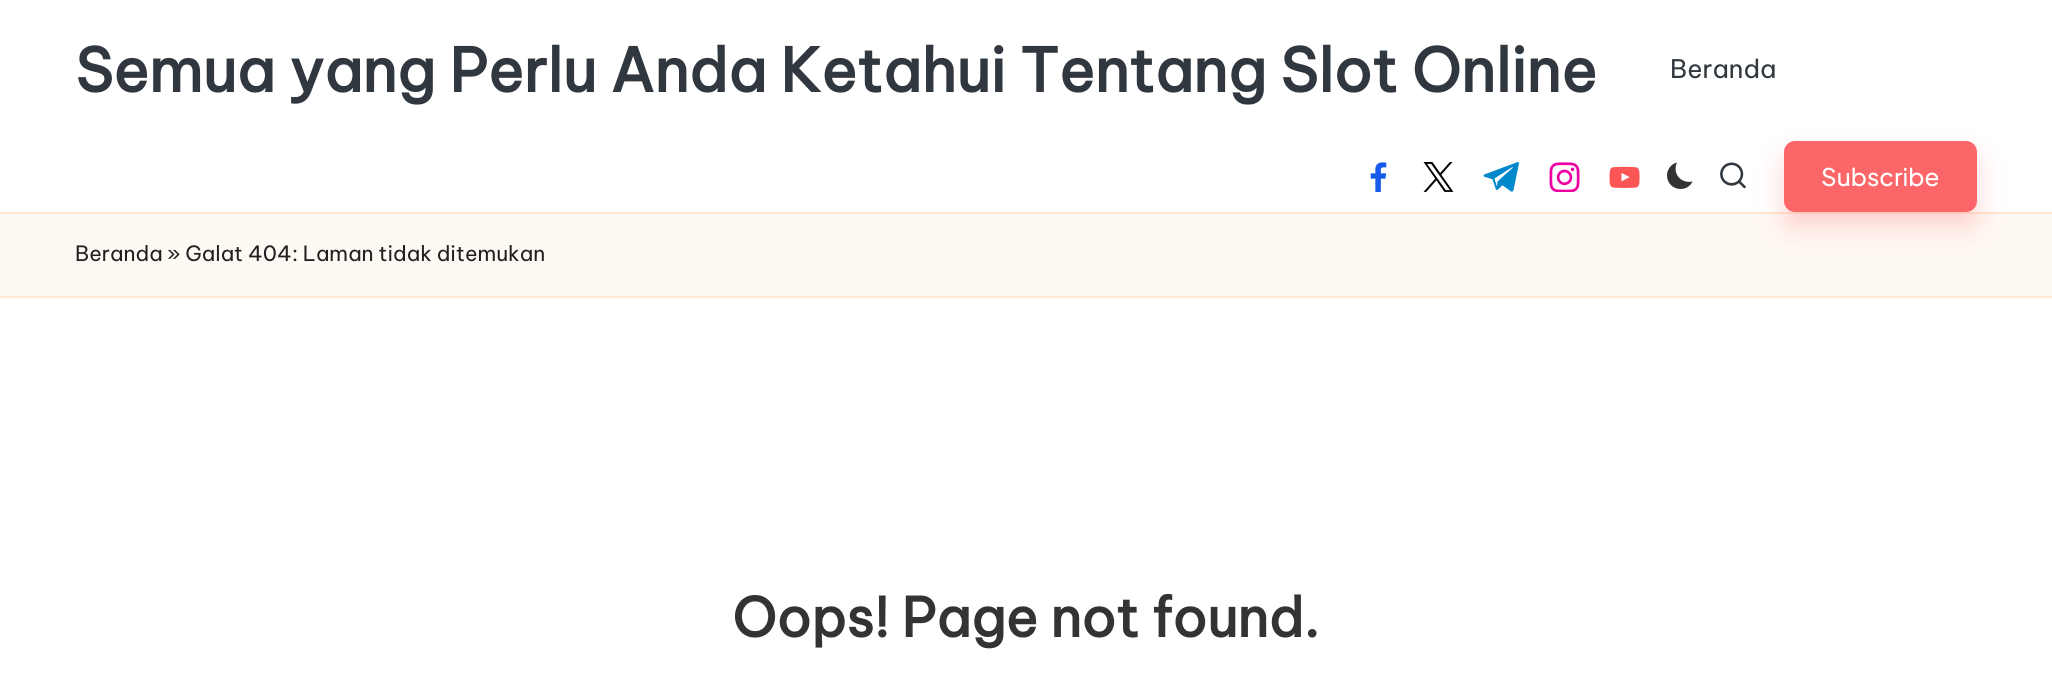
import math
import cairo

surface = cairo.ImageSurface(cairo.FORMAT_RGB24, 2052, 689)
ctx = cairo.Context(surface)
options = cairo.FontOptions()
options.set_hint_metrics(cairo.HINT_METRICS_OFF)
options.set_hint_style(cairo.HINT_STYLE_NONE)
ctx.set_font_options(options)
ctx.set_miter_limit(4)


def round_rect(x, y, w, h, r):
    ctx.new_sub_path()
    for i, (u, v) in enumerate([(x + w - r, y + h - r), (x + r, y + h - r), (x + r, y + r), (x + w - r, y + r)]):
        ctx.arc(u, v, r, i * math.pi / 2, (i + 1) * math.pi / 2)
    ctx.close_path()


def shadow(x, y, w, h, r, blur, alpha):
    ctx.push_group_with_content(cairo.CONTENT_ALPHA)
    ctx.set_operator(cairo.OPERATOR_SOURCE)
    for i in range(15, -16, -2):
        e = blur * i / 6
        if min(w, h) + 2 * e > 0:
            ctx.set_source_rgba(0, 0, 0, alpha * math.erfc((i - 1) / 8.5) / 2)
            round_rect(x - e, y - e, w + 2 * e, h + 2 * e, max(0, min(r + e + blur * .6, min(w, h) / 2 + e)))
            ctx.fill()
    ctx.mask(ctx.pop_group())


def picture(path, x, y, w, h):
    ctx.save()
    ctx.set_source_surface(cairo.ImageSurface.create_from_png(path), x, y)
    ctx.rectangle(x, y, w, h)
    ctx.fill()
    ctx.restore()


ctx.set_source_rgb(1, 1, 1)
ctx.paint()
ctx.select_font_face("Be Vietnam Pro", cairo.FONT_SLANT_NORMAL, cairo.FONT_WEIGHT_BOLD)
ctx.set_font_size(60)
ctx.set_source_rgb(0.188, 0.216, 0.243)
ctx.move_to(75, 92)
ctx.show_text("Semua yang Perlu Anda Ketahui Tentang Slot Online")
ctx.select_font_face("Be Vietnam Pro")
ctx.set_font_size(25.5)
ctx.move_to(1670, 78)
ctx.show_text("Beranda")
picture("img1.png", 1370, 162, 17, 30)
picture("img2.png", 1423, 162, 31, 30)
picture("img3.png", 1483, 162, 36, 30)
picture("img4.png", 1549, 162, 31, 30)
picture("img5.png", 1609, 166, 31, 22)
ctx.set_source_rgb(0.2, 0.2, 0.2)
ctx.new_path()
ctx.move_to(1692.5, 181.5)
ctx.curve_to(1681, 184, 1672, 173.5, 1677, 162.5)
ctx.curve_to(1671, 164, 1667, 169.5, 1667, 175.5)
ctx.curve_to(1667, 183, 1673, 189, 1680.5, 189)
ctx.curve_to(1686, 189, 1690.5, 186, 1692.5, 181.5)
ctx.close_path()
ctx.fill()
picture("img6.png", 1720, 162, 26, 27)
ctx.set_source_rgb(1, 0.976, 0.953)
ctx.rectangle(0, 214, 2052, 82)
ctx.fill()
ctx.set_source_rgb(1, 0.906, 0.824)
ctx.rectangle(0, 212, 2052, 2)
ctx.fill()
ctx.set_source_rgb(0.988, 0.4, 0.408)
shadow(1784, 156, 193, 71, 11, 13.5, 0.27)
ctx.set_source_rgb(0.988, 0.4, 0.408)
round_rect(1785, 142, 191, 69, 10)
ctx.fill_preserve()
ctx.stroke()
ctx.select_font_face("Plus Jakarta Sans Medium")
ctx.set_font_size(24.25)
ctx.set_source_rgb(1, 1, 1)
ctx.move_to(1821, 186)
ctx.show_text("Subscribe")
ctx.set_source_rgb(1, 0.906, 0.824)
ctx.rectangle(0, 296, 2052, 2)
ctx.fill()
ctx.select_font_face("Be Vietnam Pro")
ctx.set_font_size(21)
ctx.set_source_rgb(0.129, 0.129, 0.129)
ctx.move_to(75, 261)
ctx.show_text("Beranda")
ctx.move_to(167, 261)
ctx.show_text("» Galat 404: Laman tidak ditemukan")
ctx.select_font_face("Be Vietnam Pro", cairo.FONT_SLANT_NORMAL, cairo.FONT_WEIGHT_BOLD)
ctx.set_font_size(54)
ctx.set_source_rgb(0.2, 0.2, 0.2)
ctx.move_to(732, 637)
ctx.show_text("Oops! Page not found.")
surface.write_to_png("page.png")
